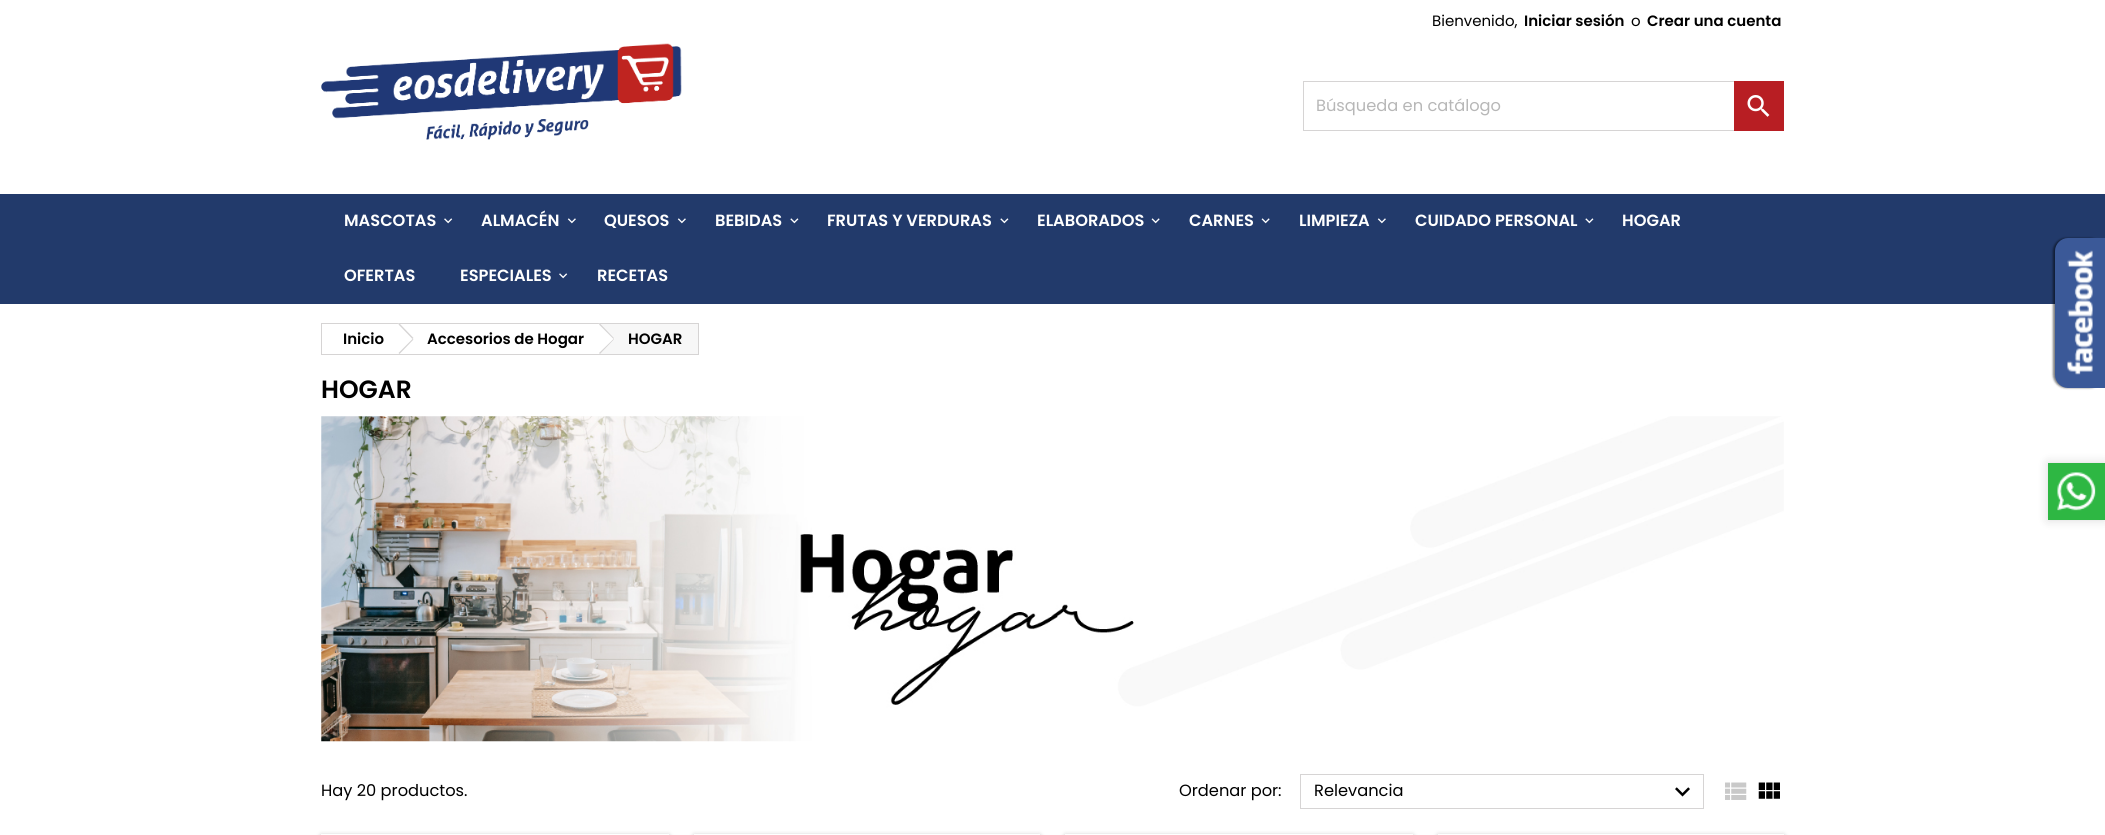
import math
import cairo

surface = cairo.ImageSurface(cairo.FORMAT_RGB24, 2105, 835)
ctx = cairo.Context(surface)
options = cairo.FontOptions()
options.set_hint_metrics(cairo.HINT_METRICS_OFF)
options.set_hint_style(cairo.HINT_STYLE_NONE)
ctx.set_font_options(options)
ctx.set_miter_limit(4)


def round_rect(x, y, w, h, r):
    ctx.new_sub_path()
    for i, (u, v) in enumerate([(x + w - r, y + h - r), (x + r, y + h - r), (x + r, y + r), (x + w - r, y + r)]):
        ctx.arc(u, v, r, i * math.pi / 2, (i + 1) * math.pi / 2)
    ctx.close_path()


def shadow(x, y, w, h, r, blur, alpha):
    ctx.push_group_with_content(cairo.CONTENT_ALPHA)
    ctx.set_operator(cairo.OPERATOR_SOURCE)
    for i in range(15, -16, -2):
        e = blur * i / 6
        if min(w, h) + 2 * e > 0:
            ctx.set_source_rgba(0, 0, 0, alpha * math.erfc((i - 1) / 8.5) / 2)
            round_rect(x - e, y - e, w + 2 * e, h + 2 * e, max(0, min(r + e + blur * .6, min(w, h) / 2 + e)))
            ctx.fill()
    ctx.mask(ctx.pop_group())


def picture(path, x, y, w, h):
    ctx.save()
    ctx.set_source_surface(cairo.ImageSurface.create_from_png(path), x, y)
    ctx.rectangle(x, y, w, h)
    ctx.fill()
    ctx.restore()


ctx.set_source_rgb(1, 1, 1)
ctx.paint()
ctx.select_font_face("Poppins")
ctx.set_font_size(15)
ctx.set_source_rgb(0, 0, 0)
ctx.move_to(1432, 26)
ctx.show_text("Bienvenido,")
ctx.select_font_face("Poppins SemiBold")
ctx.move_to(1524, 26)
ctx.show_text("Iniciar sesión")
ctx.select_font_face("Poppins")
ctx.move_to(1631, 26)
ctx.show_text("o")
ctx.select_font_face("Poppins SemiBold")
ctx.move_to(1647, 26)
ctx.show_text("Crear una cuenta")
picture("img1.png", 321, 43, 361, 97)
ctx.rectangle(1303.5, 81.5, 480, 49)
ctx.set_source_rgb(0.839, 0.831, 0.831)
ctx.set_line_width(1)
ctx.stroke()
ctx.select_font_face("Poppins")
ctx.set_font_size(16.25)
ctx.set_source_rgb(0.718, 0.718, 0.718)
ctx.move_to(1316, 111)
ctx.show_text("Búsqueda en catálogo")
ctx.set_source_rgb(0.722, 0.118, 0.137)
ctx.rectangle(1734, 81, 50, 50)
ctx.fill()
picture("img2.png", 1747, 95, 23, 22)
ctx.set_source_rgb(0.133, 0.227, 0.42)
ctx.rectangle(0, 194, 2105, 110)
ctx.fill()
ctx.select_font_face("Poppins SemiBold")
ctx.set_source_rgb(1, 1, 1)
ctx.move_to(344, 226)
ctx.show_text("MASCOTAS")
picture("img3.png", 444, 218, 9, 6)
ctx.move_to(481, 226)
ctx.show_text("ALMACÉN")
picture("img4.png", 567, 218, 9, 6)
ctx.move_to(604, 226)
ctx.show_text("QUESOS")
picture("img4.png", 677, 218, 9, 6)
ctx.move_to(715, 226)
ctx.show_text("BEBIDAS")
picture("img5.png", 790, 218, 9, 6)
ctx.move_to(827, 226)
ctx.show_text("FRUTAS Y VERDURAS")
picture("img5.png", 1000, 218, 9, 6)
ctx.move_to(1037, 226)
ctx.show_text("ELABORADOS")
picture("img6.png", 1151, 218, 9, 6)
ctx.move_to(1189, 226)
ctx.show_text("CARNES")
picture("img6.png", 1261, 218, 9, 6)
ctx.move_to(1299, 226)
ctx.show_text("LIMPIEZA")
picture("img4.png", 1377, 218, 9, 6)
ctx.move_to(1415, 226)
ctx.show_text("CUIDADO PERSONAL")
picture("img5.png", 1585, 218, 9, 6)
ctx.move_to(1622, 226)
ctx.show_text("HOGAR")
ctx.move_to(344, 281)
ctx.show_text("OFERTAS")
ctx.move_to(460, 281)
ctx.show_text("ESPECIALES")
picture("img3.png", 559, 273, 9, 6)
ctx.move_to(597, 281)
ctx.show_text("RECETAS")
ctx.set_source_rgb(0, 0, 0)
shadow(2053, 238, 50, 150, 13, 1, 0.5)
ctx.set_source_rgb(0.231, 0.349, 0.596)
ctx.new_path()
ctx.move_to(2068, 238)
ctx.line_to(2105, 238)
ctx.line_to(2105, 388)
ctx.line_to(2068, 388)
ctx.curve_to(2061, 388, 2055, 382, 2055, 375)
ctx.line_to(2055, 251)
ctx.curve_to(2055, 244, 2061, 238, 2068, 238)
ctx.close_path()
ctx.fill()
picture("img7.png", 2067, 250, 26, 125)
ctx.rectangle(321.5, 323.5, 377, 31)
ctx.set_source_rgb(0.839, 0.831, 0.831)
ctx.stroke()
ctx.set_font_size(15)
ctx.set_source_rgb(0, 0, 0)
ctx.move_to(343, 344)
ctx.show_text("Inicio")
ctx.set_source_rgb(1, 1, 1)
ctx.new_path()
ctx.move_to(400.5, 324.5)
ctx.line_to(412.5, 337)
ctx.curve_to(413.5, 338, 413.5, 339.5, 412.5, 340.5)
ctx.line_to(400.5, 353)
ctx.curve_to(399.5, 354, 397.5, 354, 397, 353)
ctx.line_to(384.5, 340.5)
ctx.curve_to(383.5, 339.5, 383.5, 338, 384.5, 337)
ctx.line_to(397, 324.5)
ctx.curve_to(397.5, 323.5, 399.5, 323.5, 400.5, 324.5)
ctx.close_path()
ctx.fill()
ctx.set_source_rgb(0.839, 0.831, 0.831)
ctx.new_path()
ctx.move_to(399.5, 323.5)
ctx.line_to(413.5, 338)
ctx.line_to(412.5, 339)
ctx.line_to(398.5, 324.5)
ctx.close_path()
ctx.move_to(412.5, 339)
ctx.line_to(413.5, 339.5)
ctx.line_to(399.5, 354)
ctx.line_to(398.5, 353)
ctx.close_path()
ctx.fill()
ctx.set_source_rgb(0, 0, 0)
ctx.move_to(427, 344)
ctx.show_text("Accesorios de Hogar")
ctx.set_source_rgb(0.965, 0.965, 0.965)
ctx.rectangle(600, 324, 98, 30)
ctx.fill()
ctx.set_source_rgb(1, 1, 1)
ctx.new_path()
ctx.move_to(601, 324.5)
ctx.line_to(613.5, 337)
ctx.curve_to(614.5, 338, 614.5, 339.5, 613.5, 340.5)
ctx.line_to(601, 353)
ctx.curve_to(600, 354, 598.5, 354, 597.5, 353)
ctx.line_to(585, 340.5)
ctx.curve_to(584, 339.5, 584, 338, 585, 337)
ctx.line_to(597.5, 324.5)
ctx.curve_to(598.5, 323.5, 600, 323.5, 601, 324.5)
ctx.close_path()
ctx.fill()
ctx.set_source_rgb(0.839, 0.831, 0.831)
ctx.new_path()
ctx.move_to(600, 323.5)
ctx.line_to(614, 338)
ctx.line_to(613.5, 339)
ctx.line_to(599, 324.5)
ctx.close_path()
ctx.move_to(613.5, 339)
ctx.line_to(614, 339.5)
ctx.line_to(600, 354)
ctx.line_to(599, 353)
ctx.close_path()
ctx.fill()
ctx.set_source_rgb(0, 0, 0)
ctx.move_to(628, 344)
ctx.show_text("HOGAR")
ctx.set_font_size(25)
ctx.move_to(321, 398)
ctx.show_text("HOGAR")
picture("img8.png", 321, 416, 1463, 326)
ctx.select_font_face("Poppins")
ctx.set_font_size(16.25)
ctx.move_to(321, 796)
ctx.show_text("Hay 20 productos.")
ctx.move_to(1179, 796)
ctx.show_text("Ordenar por:")
ctx.rectangle(1300.5, 774.5, 403, 34)
ctx.set_source_rgb(0.839, 0.831, 0.831)
ctx.stroke()
ctx.set_source_rgb(0, 0, 0)
ctx.move_to(1314, 796)
ctx.show_text("Relevancia")
picture("img9.png", 1675, 787, 15, 10)
picture("img10.png", 1725, 782, 22, 18)
picture("img11.png", 1758, 782, 22, 17)
ctx.set_source_rgb(0, 0, 0)
shadow(321, 835, 348, 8, 0, 2.5, 0.24)
ctx.set_source_rgb(1, 1, 1)
ctx.rectangle(321, 834, 348, 1)
ctx.fill()
ctx.save()
ctx.set_fill_rule(cairo.FILL_RULE_EVEN_ODD)
ctx.new_path()
ctx.move_to(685, 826)
ctx.line_to(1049, 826)
ctx.line_to(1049, 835)
ctx.line_to(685, 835)
ctx.close_path()
ctx.move_to(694, 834)
ctx.line_to(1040, 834)
ctx.line_to(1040, 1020)
ctx.line_to(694, 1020)
ctx.close_path()
ctx.clip()
ctx.set_source_rgb(0, 0, 0)
shadow(694, 835, 346, 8, 0, 2.5, 0.24)
ctx.restore()
ctx.set_source_rgb(0, 0, 0)
shadow(1065, 835, 348, 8, 0, 2.5, 0.24)
ctx.set_source_rgb(1, 1, 1)
ctx.rectangle(1065, 834, 348, 1)
ctx.fill()
ctx.set_source_rgb(0, 0, 0)
shadow(1438, 835, 346, 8, 0, 2.5, 0.24)
ctx.set_source_rgb(1, 1, 1)
ctx.rectangle(1438, 834, 346, 1)
ctx.fill()
ctx.set_source_rgb(0, 0, 0)
shadow(2048, 463, 57, 57, 0, 5.5, 0.15)
ctx.set_source_rgb(0.18, 0.718, 0.263)
ctx.rectangle(2048, 463, 57, 57)
ctx.fill()
picture("img12.png", 2057, 472, 39, 39)
surface.write_to_png("page.png")
